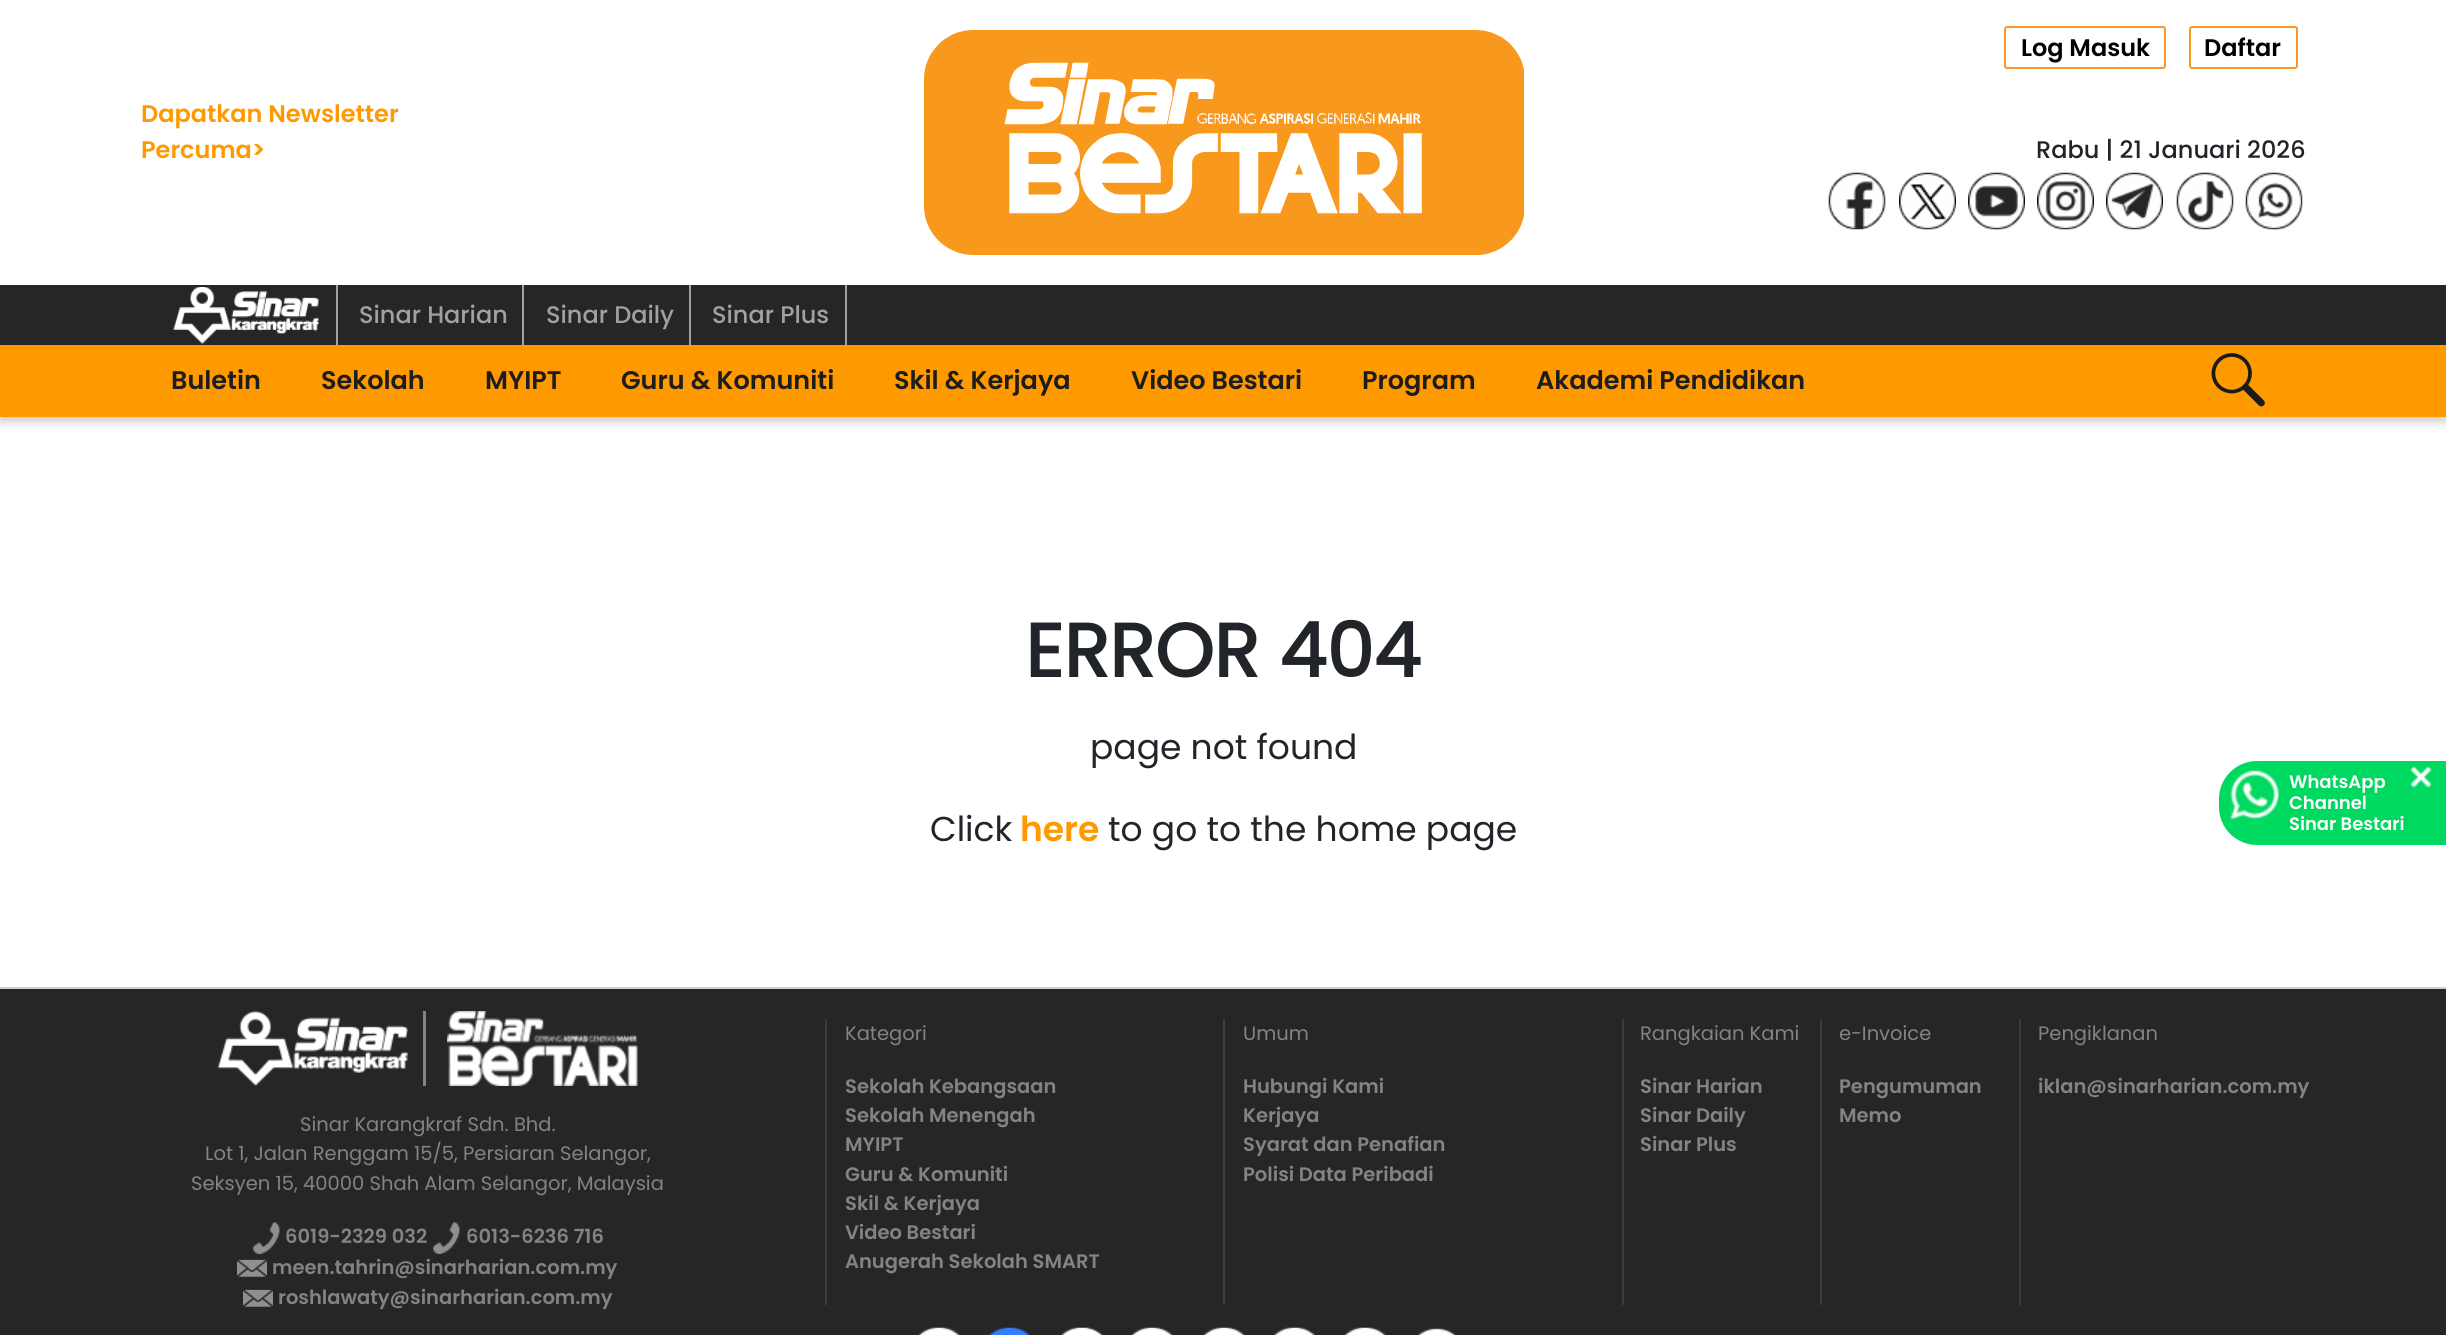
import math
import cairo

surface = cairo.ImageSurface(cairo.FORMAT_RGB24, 2446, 1335)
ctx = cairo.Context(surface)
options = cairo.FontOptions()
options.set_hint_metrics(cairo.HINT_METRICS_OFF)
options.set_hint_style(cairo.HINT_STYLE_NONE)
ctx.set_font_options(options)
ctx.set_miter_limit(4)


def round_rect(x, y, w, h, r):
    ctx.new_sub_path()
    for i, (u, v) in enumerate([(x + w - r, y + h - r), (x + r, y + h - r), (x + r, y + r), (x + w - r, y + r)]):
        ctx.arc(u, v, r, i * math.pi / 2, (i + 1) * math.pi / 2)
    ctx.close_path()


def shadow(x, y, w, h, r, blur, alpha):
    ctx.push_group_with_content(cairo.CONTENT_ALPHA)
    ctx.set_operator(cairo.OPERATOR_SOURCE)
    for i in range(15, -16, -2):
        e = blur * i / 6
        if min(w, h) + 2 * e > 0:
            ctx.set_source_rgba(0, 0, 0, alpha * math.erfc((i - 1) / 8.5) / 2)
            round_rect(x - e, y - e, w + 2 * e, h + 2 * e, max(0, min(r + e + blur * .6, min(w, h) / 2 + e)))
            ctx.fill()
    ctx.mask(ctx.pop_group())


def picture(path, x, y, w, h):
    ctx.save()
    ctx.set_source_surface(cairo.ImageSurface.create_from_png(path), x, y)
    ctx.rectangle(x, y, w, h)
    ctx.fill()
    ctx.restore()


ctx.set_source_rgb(1, 1, 1)
ctx.paint()
ctx.select_font_face("Poppins SemiBold")
ctx.set_font_size(24)
ctx.set_source_rgb(1, 0.6, 0)
ctx.move_to(141, 122)
ctx.show_text("Dapatkan Newsletter")
ctx.move_to(141, 158)
ctx.show_text("Percuma>")
picture("img1.png", 924, 30, 600, 225)
round_rect(2005, 27, 160, 41, 2)
ctx.set_source_rgb(0.973, 0.6, 0.114)
ctx.stroke()
ctx.set_source_rgb(0, 0, 0)
ctx.move_to(2021, 56)
ctx.show_text("Log Masuk")
round_rect(2190, 27, 107, 41, 2)
ctx.set_source_rgb(0.973, 0.6, 0.114)
ctx.stroke()
ctx.set_source_rgb(0, 0, 0)
ctx.move_to(2204, 56)
ctx.show_text("Daftar")
ctx.select_font_face("Poppins Medium")
ctx.set_source_rgb(0.129, 0.145, 0.161)
ctx.move_to(2036, 158)
ctx.show_text("Rabu | 21 Januari 2026")
picture("img2.png", 1828, 172, 58, 58)
picture("img3.png", 1899, 172, 57, 58)
picture("img4.png", 1968, 172, 57, 58)
picture("img5.png", 2037, 172, 57, 58)
picture("img6.png", 2106, 172, 57, 58)
picture("img7.png", 2176, 172, 58, 58)
picture("img8.png", 2245, 172, 58, 58)
ctx.set_source_rgb(0, 0, 0)
shadow(0, 350, 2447, 72, 0, 4.5, 0.2)
ctx.set_source_rgb(0.149, 0.149, 0.149)
ctx.rectangle(0, 285, 2446, 60)
ctx.fill()
ctx.set_source_rgb(0.631, 0.631, 0.631)
ctx.rectangle(336, 285, 2, 60)
ctx.fill()
picture("img9.png", 173, 287, 146, 57)
ctx.rectangle(522, 285, 2, 60)
ctx.fill()
ctx.move_to(359, 323)
ctx.show_text("Sinar Harian")
ctx.rectangle(689, 285, 2, 60)
ctx.fill()
ctx.move_to(546, 323)
ctx.show_text("Sinar Daily")
ctx.rectangle(845, 285, 2, 60)
ctx.fill()
ctx.move_to(712, 323)
ctx.show_text("Sinar Plus")
ctx.set_source_rgb(1, 0.6, 0)
ctx.rectangle(0, 345, 2446, 72)
ctx.fill()
ctx.select_font_face("Poppins SemiBold")
ctx.set_font_size(25.5)
ctx.set_source_rgb(0.114, 0.114, 0.114)
ctx.move_to(171, 389)
ctx.show_text("Buletin")
ctx.move_to(321, 389)
ctx.show_text("Sekolah")
ctx.move_to(485, 389)
ctx.show_text("MYIPT")
ctx.move_to(621, 389)
ctx.show_text("Guru & Komuniti")
ctx.move_to(894, 389)
ctx.show_text("Skil & Kerjaya")
ctx.move_to(1131, 389)
ctx.show_text("Video Bestari")
ctx.move_to(1362, 389)
ctx.show_text("Program")
ctx.move_to(1536, 389)
ctx.show_text("Akademi Pendidikan")
picture("img10.png", 2211, 353, 54, 54)
ctx.select_font_face("Poppins", cairo.FONT_SLANT_NORMAL, cairo.FONT_WEIGHT_BOLD)
ctx.set_font_size(75)
ctx.set_source_rgb(0.129, 0.145, 0.161)
ctx.move_to(1025, 677)
ctx.show_text("ERROR 404")
ctx.select_font_face("Poppins")
ctx.set_font_size(34.5)
ctx.move_to(1090, 759)
ctx.show_text("page not found")
ctx.move_to(930, 841)
ctx.show_text("Click")
ctx.select_font_face("Poppins SemiBold")
ctx.set_source_rgb(1, 0.6, 0)
ctx.move_to(1020, 841)
ctx.show_text("here")
ctx.select_font_face("Poppins")
ctx.set_source_rgb(0.129, 0.145, 0.161)
ctx.move_to(1108, 841)
ctx.show_text("to go to the home page")
ctx.set_source_rgb(0.149, 0.149, 0.149)
ctx.rectangle(0, 989, 2446, 346)
ctx.fill()
ctx.set_source_rgb(0.816, 0.816, 0.816)
ctx.rectangle(0, 987, 2446, 2)
ctx.fill()
ctx.set_source_rgb(0, 0.851, 0.373)
ctx.new_path()
ctx.move_to(2257, 761)
ctx.line_to(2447, 761)
ctx.line_to(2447, 845)
ctx.line_to(2257, 845)
ctx.curve_to(2236, 845, 2219, 828, 2219, 807)
ctx.line_to(2219, 799)
ctx.curve_to(2219, 778, 2236, 761, 2257, 761)
ctx.close_path()
ctx.fill()
picture("img11.png", 2230, 770, 49, 50)
ctx.select_font_face("Poppins SemiBold")
ctx.set_font_size(18)
ctx.set_source_rgb(1, 1, 1)
ctx.move_to(2289, 788)
ctx.show_text("WhatsApp")
ctx.move_to(2289, 809)
ctx.show_text("Channel")
ctx.move_to(2289, 830)
ctx.show_text("Sinar Bestari")
picture("img12.png", 2410, 766, 22, 22)
ctx.set_source_rgb(0.514, 0.514, 0.514)
ctx.rectangle(423, 1011, 3, 75)
ctx.fill()
picture("img13.png", 217, 1011, 191, 75)
picture("img14.png", 447, 1011, 191, 75)
ctx.select_font_face("Poppins")
ctx.set_font_size(19.5)
ctx.move_to(300, 1131)
ctx.show_text("Sinar Karangkraf Sdn. Bhd.")
ctx.move_to(205, 1160)
ctx.show_text("Lot 1, Jalan Renggam 15/5, Persiaran Selangor,")
ctx.move_to(191, 1190)
ctx.show_text("Seksyen 15, 40000 Shah Alam Selangor, Malaysia")
picture("img15.png", 253, 1222, 27, 32)
ctx.select_font_face("Poppins SemiBold")
ctx.move_to(285, 1243)
ctx.show_text("6019-2329 032")
picture("img15.png", 433, 1222, 27, 32)
ctx.move_to(466, 1243)
ctx.show_text("6013-6236 716")
picture("img16.png", 237, 1259, 30, 18)
ctx.move_to(272, 1274)
ctx.show_text("meen.tahrin@sinarharian.com.my")
picture("img17.png", 243, 1289, 30, 18)
ctx.move_to(278, 1304)
ctx.show_text("roshlawaty@sinarharian.com.my")
ctx.set_source_rgb(0.235, 0.235, 0.235)
ctx.rectangle(825, 1019, 2, 286)
ctx.fill()
ctx.select_font_face("Poppins")
ctx.set_source_rgb(0.514, 0.514, 0.514)
ctx.move_to(845, 1040)
ctx.show_text("Kategori")
ctx.select_font_face("Poppins SemiBold")
ctx.move_to(845, 1093)
ctx.show_text("Sekolah Kebangsaan")
ctx.move_to(845, 1122)
ctx.show_text("Sekolah Menengah")
ctx.move_to(845, 1151)
ctx.show_text("MYIPT")
ctx.move_to(845, 1181)
ctx.show_text("Guru & Komuniti")
ctx.move_to(845, 1210)
ctx.show_text("Skil & Kerjaya")
ctx.move_to(845, 1239)
ctx.show_text("Video Bestari")
ctx.move_to(845, 1268)
ctx.show_text("Anugerah Sekolah SMART")
ctx.set_source_rgb(0.235, 0.235, 0.235)
ctx.rectangle(1223, 1019, 2, 286)
ctx.fill()
ctx.select_font_face("Poppins")
ctx.set_source_rgb(0.514, 0.514, 0.514)
ctx.move_to(1243, 1040)
ctx.show_text("Umum")
ctx.select_font_face("Poppins SemiBold")
ctx.move_to(1243, 1093)
ctx.show_text("Hubungi Kami")
ctx.move_to(1243, 1122)
ctx.show_text("Kerjaya")
ctx.move_to(1243, 1151)
ctx.show_text("Syarat dan Penafian")
ctx.move_to(1243, 1181)
ctx.show_text("Polisi Data Peribadi")
ctx.set_source_rgb(0.235, 0.235, 0.235)
ctx.rectangle(1622, 1019, 2, 286)
ctx.fill()
ctx.select_font_face("Poppins")
ctx.set_source_rgb(0.514, 0.514, 0.514)
ctx.move_to(1640, 1040)
ctx.show_text("Rangkaian Kami")
ctx.select_font_face("Poppins SemiBold")
ctx.move_to(1640, 1093)
ctx.show_text("Sinar Harian")
ctx.move_to(1640, 1122)
ctx.show_text("Sinar Daily")
ctx.move_to(1640, 1151)
ctx.show_text("Sinar Plus")
ctx.set_source_rgb(0.235, 0.235, 0.235)
ctx.rectangle(1820, 1019, 2, 286)
ctx.fill()
ctx.select_font_face("Poppins")
ctx.set_source_rgb(0.514, 0.514, 0.514)
ctx.move_to(1839, 1040)
ctx.show_text("e-Invoice")
ctx.select_font_face("Poppins SemiBold")
ctx.move_to(1839, 1093)
ctx.show_text("Pengumuman")
ctx.move_to(1839, 1122)
ctx.show_text("Memo")
ctx.set_source_rgb(0.235, 0.235, 0.235)
ctx.rectangle(2019, 1019, 2, 286)
ctx.fill()
ctx.select_font_face("Poppins")
ctx.set_source_rgb(0.514, 0.514, 0.514)
ctx.move_to(2038, 1040)
ctx.show_text("Pengiklanan")
ctx.select_font_face("Poppins SemiBold")
ctx.move_to(2038, 1093)
ctx.show_text("iklan@sinarharian.com.my")
picture("img18.png", 918, 1327, 42, 8)
picture("img19.png", 988, 1327, 43, 8)
picture("img20.png", 1060, 1327, 43, 8)
picture("img21.png", 1131, 1327, 42, 8)
picture("img22.png", 1203, 1327, 42, 8)
picture("img23.png", 1273, 1327, 43, 8)
picture("img24.png", 1344, 1327, 42, 8)
picture("img25.png", 1417, 1328, 39, 7)
surface.write_to_png("page.png")
